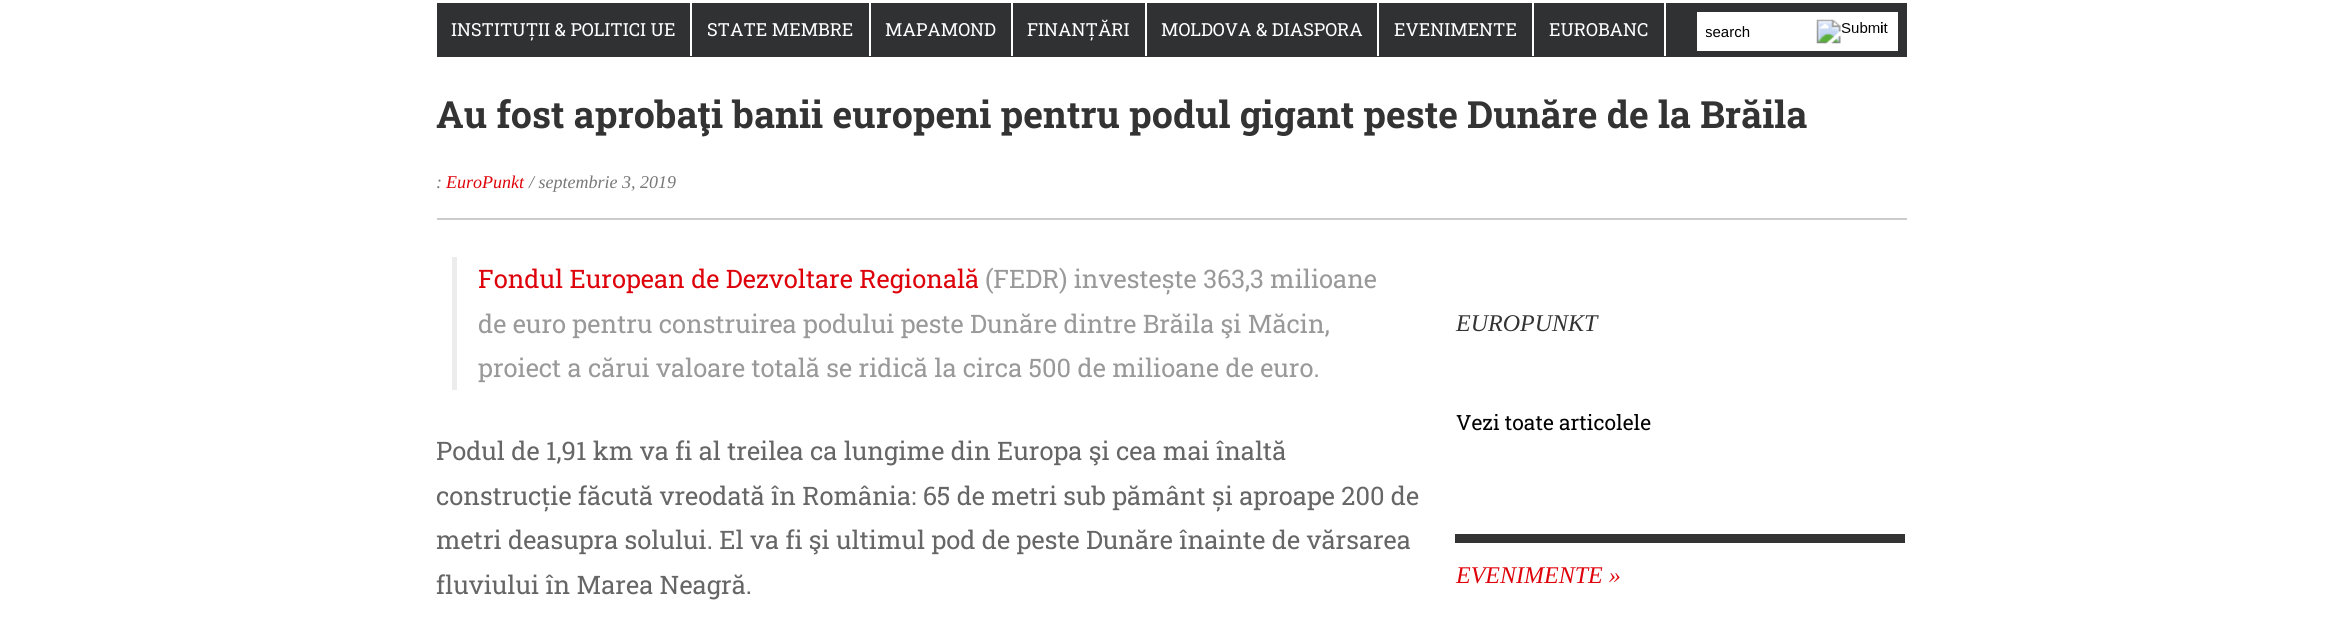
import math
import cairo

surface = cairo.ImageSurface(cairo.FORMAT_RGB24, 2341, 641)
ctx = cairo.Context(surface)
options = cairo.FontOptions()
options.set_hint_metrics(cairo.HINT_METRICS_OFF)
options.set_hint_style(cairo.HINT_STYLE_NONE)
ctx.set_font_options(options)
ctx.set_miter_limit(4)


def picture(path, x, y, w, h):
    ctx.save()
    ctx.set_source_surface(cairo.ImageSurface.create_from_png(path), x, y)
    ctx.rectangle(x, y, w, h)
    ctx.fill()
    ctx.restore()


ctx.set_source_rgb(1, 1, 1)
ctx.paint()
ctx.set_source_rgb(0.184, 0.192, 0.2)
ctx.rectangle(437, 3, 1470, 54)
ctx.fill()
ctx.set_source_rgb(1, 1, 1)
ctx.rectangle(690, 3, 2, 53)
ctx.fill()
ctx.select_font_face("Roboto Slab")
ctx.set_font_size(18)
ctx.move_to(451, 36)
ctx.show_text("INSTITUȚII & POLITICI UE")
ctx.rectangle(869, 3, 2, 53)
ctx.fill()
ctx.move_to(707, 36)
ctx.show_text("STATE MEMBRE")
ctx.rectangle(1011, 3, 2, 53)
ctx.fill()
ctx.move_to(885, 36)
ctx.show_text("MAPAMOND")
ctx.rectangle(1145, 3, 2, 53)
ctx.fill()
ctx.move_to(1027, 36)
ctx.show_text("FINANȚĂRI")
ctx.rectangle(1377, 3, 2, 53)
ctx.fill()
ctx.move_to(1161, 36)
ctx.show_text("MOLDOVA & DIASPORA")
ctx.rectangle(1532, 3, 2, 53)
ctx.fill()
ctx.move_to(1394, 36)
ctx.show_text("EVENIMENTE")
ctx.rectangle(1664, 3, 2, 53)
ctx.fill()
ctx.move_to(1549, 36)
ctx.show_text("EUROBANC")
ctx.rectangle(1697, 12, 201, 39)
ctx.fill()
ctx.save()
ctx.rectangle(1706, 24, 187, 17)
ctx.clip()
ctx.select_font_face("Liberation Sans")
ctx.set_font_size(15)
ctx.set_source_rgb(0, 0, 0)
ctx.move_to(1705, 37)
ctx.show_text("search")
ctx.restore()
picture("img1.png", 1816, 19, 72, 25)
ctx.select_font_face("Liberation Sans")
ctx.set_font_size(15)
ctx.set_source_rgb(0, 0, 0)
ctx.move_to(1880, 33)
ctx.show_text("i")
ctx.set_source_rgb(0.8, 0.8, 0.8)
ctx.rectangle(437, 218, 1470, 2)
ctx.fill()
ctx.select_font_face("Roboto Slab", cairo.FONT_SLANT_NORMAL, cairo.FONT_WEIGHT_BOLD)
ctx.set_font_size(37.5)
ctx.set_source_rgb(0.2, 0.2, 0.2)
ctx.move_to(436, 128)
ctx.show_text("Au fost aprobaţi banii europeni pentru podul gigant peste Dunăre de la Brăila")
ctx.select_font_face("Liberation Serif", cairo.FONT_SLANT_ITALIC)
ctx.set_font_size(18)
ctx.set_source_rgb(0.467, 0.467, 0.467)
ctx.move_to(436, 188)
ctx.show_text(":")
ctx.set_source_rgb(0.871, 0.012, 0.043)
ctx.move_to(446, 188)
ctx.show_text("EuroPunkt")
ctx.set_source_rgb(0.467, 0.467, 0.467)
ctx.move_to(529, 188)
ctx.show_text("/ septembrie 3, 2019")
ctx.set_source_rgb(0.925, 0.925, 0.925)
ctx.rectangle(452, 257, 5, 133)
ctx.fill()
ctx.select_font_face("Roboto Slab")
ctx.set_font_size(25.5)
ctx.set_source_rgb(0.871, 0.012, 0.043)
ctx.move_to(478, 288)
ctx.show_text("Fondul European de Dezvoltare Regională")
ctx.set_source_rgb(0.6, 0.6, 0.6)
ctx.move_to(985, 288)
ctx.show_text("(FEDR) investește 363,3 milioane")
ctx.move_to(478, 333)
ctx.show_text("de euro pentru construirea podului peste Dunăre dintre Brăila şi Măcin,")
ctx.move_to(478, 377)
ctx.show_text("proiect a cărui valoare totală se ridică la circa 500 de milioane de euro.")
ctx.set_source_rgb(0.4, 0.4, 0.4)
ctx.move_to(436, 460)
ctx.show_text("Podul de 1,91 km va fi al treilea ca lungime din Europa şi cea mai înaltă")
ctx.move_to(436, 505)
ctx.show_text("construcție făcută vreodată în România: 65 de metri sub pământ și aproape 200 de")
ctx.move_to(436, 549)
ctx.show_text("metri deasupra solului. El va fi şi ultimul pod de peste Dunăre înainte de vărsarea")
ctx.move_to(436, 594)
ctx.show_text("fluviului în Marea Neagră.")
ctx.select_font_face("Liberation Serif", cairo.FONT_SLANT_ITALIC)
ctx.set_font_size(24)
ctx.set_source_rgb(0.2, 0.2, 0.2)
ctx.move_to(1456, 331)
ctx.show_text("EUROPUNKT")
ctx.select_font_face("Roboto Slab")
ctx.set_font_size(21)
ctx.set_source_rgb(0, 0, 0)
ctx.move_to(1456, 430)
ctx.show_text("Vezi toate articolele")
ctx.set_source_rgb(0.2, 0.2, 0.2)
ctx.rectangle(1455, 534, 450, 9)
ctx.fill()
ctx.select_font_face("Liberation Serif", cairo.FONT_SLANT_ITALIC)
ctx.set_font_size(24)
ctx.set_source_rgb(0.871, 0.012, 0.043)
ctx.move_to(1456, 583)
ctx.show_text("EVENIMENTE »")
surface.write_to_png("page.png")
